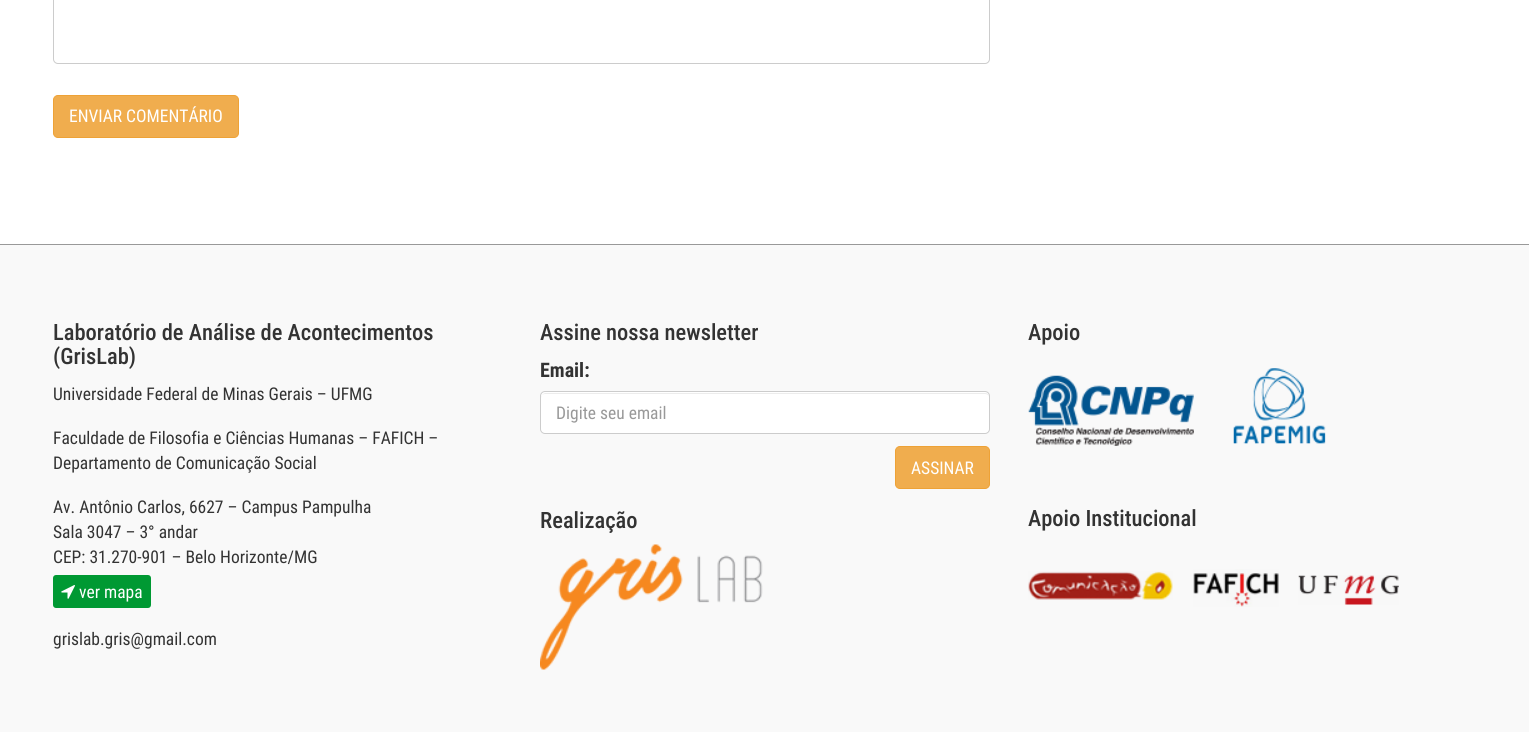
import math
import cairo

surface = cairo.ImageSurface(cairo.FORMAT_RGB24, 1529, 732)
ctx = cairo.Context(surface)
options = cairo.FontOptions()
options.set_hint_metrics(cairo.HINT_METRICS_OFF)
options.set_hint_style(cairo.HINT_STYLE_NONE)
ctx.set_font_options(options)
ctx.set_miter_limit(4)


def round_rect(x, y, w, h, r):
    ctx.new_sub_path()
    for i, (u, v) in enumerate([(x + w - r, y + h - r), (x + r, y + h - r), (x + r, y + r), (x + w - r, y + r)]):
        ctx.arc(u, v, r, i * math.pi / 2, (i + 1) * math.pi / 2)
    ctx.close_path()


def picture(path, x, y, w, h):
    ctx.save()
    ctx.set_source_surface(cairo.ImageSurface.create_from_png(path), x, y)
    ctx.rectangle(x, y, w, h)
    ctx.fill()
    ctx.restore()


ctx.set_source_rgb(1, 1, 1)
ctx.paint()
round_rect(53.5, -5.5, 936, 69, 4.5)
ctx.set_source_rgb(0.8, 0.8, 0.8)
ctx.set_line_width(1)
ctx.stroke()
ctx.set_source_rgb(0.941, 0.678, 0.306)
round_rect(53.5, 95.5, 185, 42, 4.5)
ctx.fill_preserve()
ctx.set_source_rgb(0.933, 0.635, 0.212)
ctx.stroke()
ctx.select_font_face("Roboto Condensed")
ctx.set_font_size(17.5)
ctx.set_source_rgb(1, 1, 1)
ctx.move_to(69, 122)
ctx.show_text("ENVIAR COMENTÁRIO")
ctx.set_source_rgb(0.973, 0.973, 0.973)
ctx.rectangle(0, 245, 1529, 487)
ctx.fill()
ctx.set_source_rgb(0.6, 0.6, 0.6)
ctx.rectangle(0, 244, 1529, 1)
ctx.fill()
ctx.select_font_face("Roboto Condensed Medium")
ctx.set_font_size(22.5)
ctx.set_source_rgb(0.2, 0.2, 0.2)
ctx.move_to(53, 340)
ctx.show_text("Laboratório de Análise de Acontecimentos")
ctx.move_to(53, 364)
ctx.show_text("(GrisLab)")
ctx.select_font_face("Roboto Condensed")
ctx.set_font_size(17.5)
ctx.move_to(53, 400)
ctx.show_text("Universidade Federal de Minas Gerais – UFMG")
ctx.move_to(53, 444)
ctx.show_text("Faculdade de Filosofia e Ciências Humanas – FAFICH –")
ctx.move_to(53, 469)
ctx.show_text("Departamento de Comunicação Social")
ctx.move_to(53, 513)
ctx.show_text("Av. Antônio Carlos, 6627 – Campus Pampulha")
ctx.move_to(53, 538)
ctx.show_text("Sala 3047 – 3° andar")
ctx.move_to(53, 563)
ctx.show_text("CEP: 31.270-901 – Belo Horizonte/MG")
ctx.set_source_rgb(0, 0.6, 0.2)
round_rect(53, 575, 98, 33, 3)
ctx.fill()
picture("img1.png", 61, 585, 14, 14)
ctx.set_source_rgb(1, 1, 1)
ctx.move_to(79, 598)
ctx.show_text("ver mapa")
ctx.set_source_rgb(0.2, 0.2, 0.2)
ctx.move_to(53, 645)
ctx.show_text("grislab.gris@gmail.com")
ctx.select_font_face("Roboto Condensed Medium")
ctx.set_font_size(22.5)
ctx.move_to(540, 340)
ctx.show_text("Assine nossa newsletter")
ctx.select_font_face("Roboto Condensed", cairo.FONT_SLANT_NORMAL, cairo.FONT_WEIGHT_BOLD)
ctx.set_font_size(20)
ctx.move_to(540, 377)
ctx.show_text("Email:")
ctx.set_source_rgb(1, 1, 1)
round_rect(540, 391, 450, 43, 5)
ctx.fill()
ctx.set_source_rgb(0.925, 0.925, 0.925)
ctx.new_path()
ctx.move_to(545, 394)
ctx.line_to(985, 394)
ctx.curve_to(987, 394, 989, 395, 989, 398)
ctx.curve_to(989, 395, 988, 393, 985, 393)
ctx.line_to(545, 393)
ctx.line_to(543, 394)
ctx.line_to(542, 395)
ctx.line_to(541, 398)
ctx.curve_to(541, 395, 543, 394, 545, 394)
ctx.close_path()
ctx.fill()
round_rect(540.5, 391.5, 449, 42, 4.5)
ctx.set_source_rgb(0.8, 0.8, 0.8)
ctx.stroke()
ctx.select_font_face("Roboto Condensed")
ctx.set_font_size(17.5)
ctx.set_source_rgb(0.6, 0.6, 0.6)
ctx.move_to(556, 419)
ctx.show_text("Digite seu email")
ctx.set_source_rgb(0.941, 0.678, 0.306)
round_rect(895.5, 446.5, 94, 42, 4.5)
ctx.fill_preserve()
ctx.set_source_rgb(0.933, 0.635, 0.212)
ctx.stroke()
ctx.set_source_rgb(1, 1, 1)
ctx.move_to(911, 474)
ctx.show_text("ASSINAR")
ctx.select_font_face("Roboto Condensed Medium")
ctx.set_font_size(22.5)
ctx.set_source_rgb(0.2, 0.2, 0.2)
ctx.move_to(540, 528)
ctx.show_text("Realização")
picture("img2.png", 540, 544, 223, 126)
ctx.move_to(1028, 340)
ctx.show_text("Apoio")
picture("img3.png", 1028, 375, 166, 71)
picture("img4.png", 1233, 368, 93, 76)
ctx.move_to(1028, 526)
ctx.show_text("Apoio Institucional")
picture("img5.png", 1028, 571, 145, 29)
picture("img6.png", 1193, 569, 86, 38)
picture("img7.png", 1298, 575, 101, 30)
surface.write_to_png("page.png")
